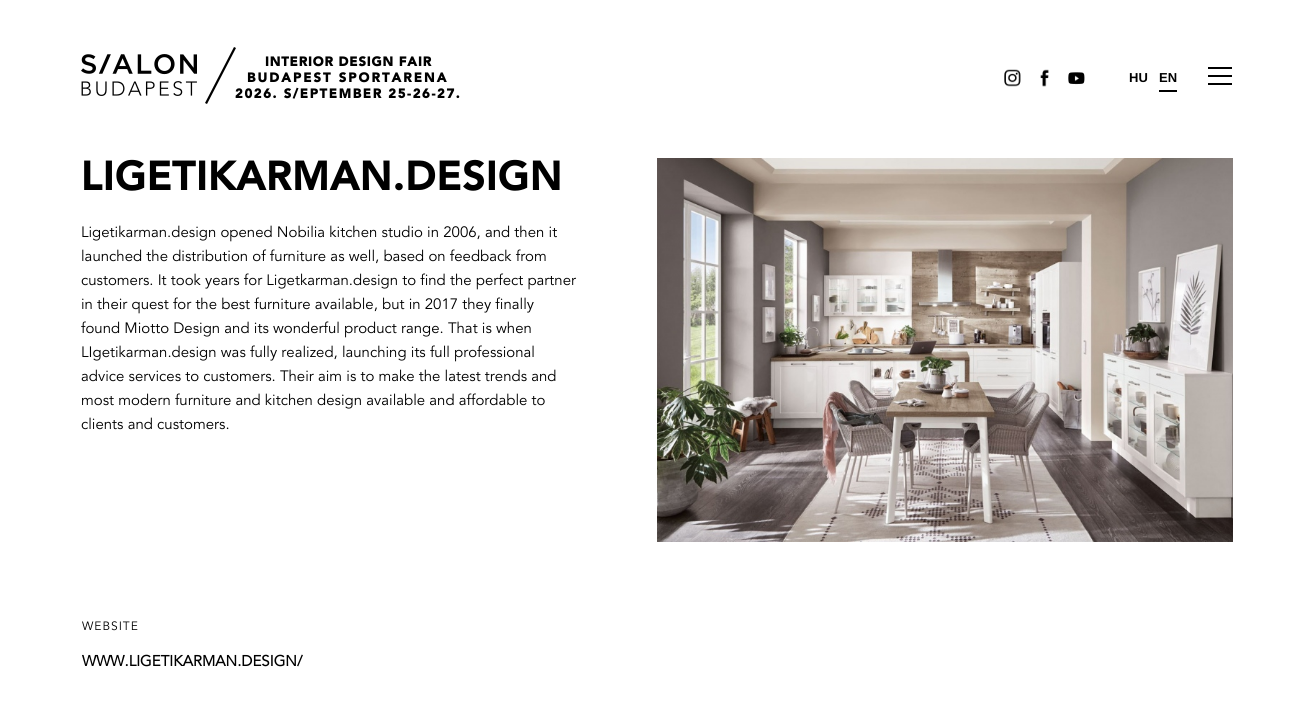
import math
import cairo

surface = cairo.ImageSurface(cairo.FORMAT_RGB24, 1314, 724)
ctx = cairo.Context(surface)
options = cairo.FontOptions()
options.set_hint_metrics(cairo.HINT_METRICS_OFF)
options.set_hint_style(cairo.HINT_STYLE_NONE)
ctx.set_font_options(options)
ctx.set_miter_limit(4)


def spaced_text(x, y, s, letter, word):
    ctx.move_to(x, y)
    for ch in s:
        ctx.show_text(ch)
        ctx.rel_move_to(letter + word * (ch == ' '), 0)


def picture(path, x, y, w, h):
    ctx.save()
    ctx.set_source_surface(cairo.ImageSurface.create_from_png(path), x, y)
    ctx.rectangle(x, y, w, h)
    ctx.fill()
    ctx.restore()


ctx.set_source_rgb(1, 1, 1)
ctx.paint()
picture("img1.png", 81, 54, 116, 42)
ctx.set_source_rgb(0, 0, 0)
ctx.new_path()
ctx.move_to(234, 47)
ctx.line_to(236, 48)
ctx.line_to(207, 104)
ctx.line_to(205, 103)
ctx.close_path()
ctx.fill()
ctx.select_font_face("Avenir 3", cairo.FONT_SLANT_NORMAL, cairo.FONT_WEIGHT_BOLD)
ctx.set_font_size(13)
spaced_text(265, 66, "INTERIOR DESIGN FAIR", 0.9, 0)
spaced_text(247, 82, "BUDAPEST SPORTARENA", 2.1, 0)
spaced_text(235, 98, "2026. S/EPTEMBER 25-26-27.", 1.7, 0)
picture("img2.png", 1004, 69, 17, 18)
picture("img3.png", 1040, 69, 9, 18)
picture("img4.png", 1068, 72, 17, 13)
ctx.select_font_face("Liberation Sans", cairo.FONT_SLANT_NORMAL, cairo.FONT_WEIGHT_BOLD)
ctx.move_to(1129, 82)
ctx.show_text("HU")
ctx.move_to(1159, 82)
ctx.show_text("EN")
ctx.rectangle(1159, 90, 18, 2)
ctx.fill()
ctx.rectangle(1208, 67, 24, 2)
ctx.fill()
ctx.rectangle(1208, 75, 24, 2)
ctx.fill()
ctx.rectangle(1208, 83, 24, 2)
ctx.fill()
ctx.select_font_face("Avenir", cairo.FONT_SLANT_NORMAL, cairo.FONT_WEIGHT_BOLD)
ctx.set_font_size(40)
spaced_text(81, 190, "LIGETIKARMAN.DESIGN", 0.9, 0)
ctx.select_font_face("Avenir")
ctx.set_font_size(15)
ctx.move_to(81, 237)
ctx.show_text("Ligetikarman.design opened Nobilia kitchen studio in 2006, and then it")
ctx.move_to(81, 261)
ctx.show_text("launched the distribution of furniture as well, based on feedback from")
ctx.move_to(81, 285)
ctx.show_text("customers. It took years for Ligetkarman.design to find the perfect partner")
ctx.move_to(81, 309)
ctx.show_text("in their quest for the best furniture available, but in 2017 they finally")
ctx.move_to(81, 333)
ctx.show_text("found Miotto Design and its wonderful product range. That is when")
ctx.move_to(81, 357)
ctx.show_text("LIgetikarman.design was fully realized, launching its full professional")
ctx.move_to(81, 381)
ctx.show_text("advice services to customers. Their aim is to make the latest trends and")
ctx.move_to(81, 405)
ctx.show_text("most modern furniture and kitchen design available and affordable to")
ctx.move_to(81, 429)
ctx.show_text("clients and customers.")
picture("img5.png", 657, 158, 576, 384)
ctx.set_font_size(12)
spaced_text(82, 630, "WEBSITE", 1, 0)
ctx.select_font_face("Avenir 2", cairo.FONT_SLANT_NORMAL, cairo.FONT_WEIGHT_BOLD)
ctx.set_font_size(15)
ctx.move_to(82, 666)
ctx.show_text("WWW.LIGETIKARMAN.DESIGN/")
surface.write_to_png("page.png")
